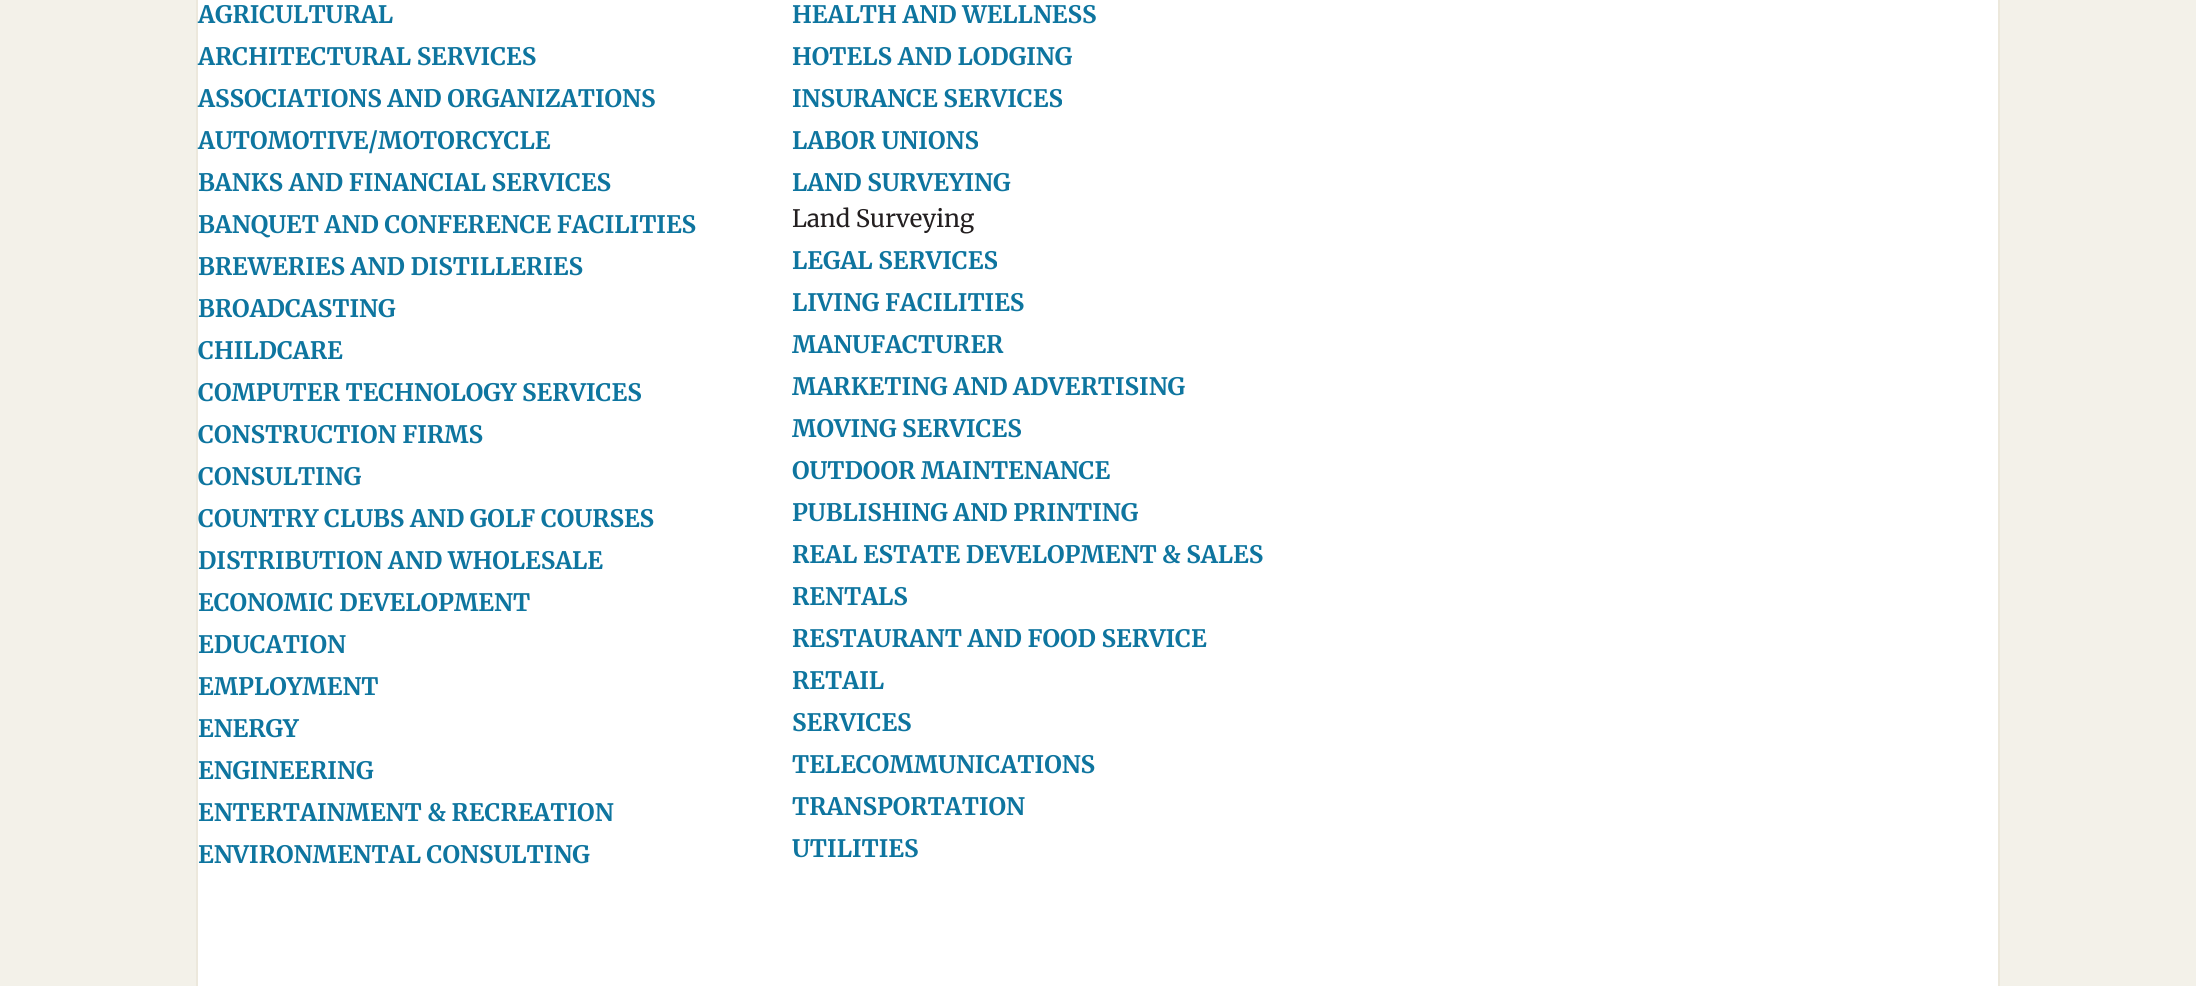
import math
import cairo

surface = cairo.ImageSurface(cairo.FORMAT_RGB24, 2196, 986)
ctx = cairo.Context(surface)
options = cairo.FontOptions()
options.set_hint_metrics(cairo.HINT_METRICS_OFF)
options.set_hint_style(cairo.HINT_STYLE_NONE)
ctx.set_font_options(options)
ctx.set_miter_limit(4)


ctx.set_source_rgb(0.953, 0.945, 0.914)
ctx.paint()
ctx.set_source_rgb(1, 1, 1)
ctx.rectangle(198, 0, 1800, 986)
ctx.fill()
ctx.set_source_rgb(0.922, 0.91, 0.863)
ctx.new_path()
ctx.move_to(2000, 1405)
ctx.curve_to(1999, 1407, 1997, 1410, 1995, 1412)
ctx.line_to(1994, 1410)
ctx.curve_to(1996, 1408, 1998, 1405, 1998, 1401)
ctx.line_to(1998, -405)
ctx.line_to(2000, -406)
ctx.close_path()
ctx.fill()
ctx.new_path()
ctx.move_to(198, -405)
ctx.line_to(198, 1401)
ctx.curve_to(198, 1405, 200, 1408, 202, 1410)
ctx.line_to(201, 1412)
ctx.curve_to(199, 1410, 197, 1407, 196, 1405)
ctx.line_to(196, -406)
ctx.line_to(197, -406)
ctx.close_path()
ctx.fill()
ctx.select_font_face("Merriweather", cairo.FONT_SLANT_NORMAL, cairo.FONT_WEIGHT_BOLD)
ctx.set_font_size(24)
ctx.set_source_rgb(0.055, 0.459, 0.624)
ctx.move_to(198, 23)
ctx.show_text("AGRICULTURAL")
ctx.move_to(198, 65)
ctx.show_text("ARCHITECTURAL SERVICES")
ctx.move_to(198, 107)
ctx.show_text("ASSOCIATIONS AND ORGANIZATIONS")
ctx.move_to(198, 149)
ctx.show_text("AUTOMOTIVE/MOTORCYCLE")
ctx.move_to(198, 191)
ctx.show_text("BANKS AND FINANCIAL SERVICES")
ctx.move_to(198, 233)
ctx.show_text("BANQUET AND CONFERENCE FACILITIES")
ctx.move_to(198, 275)
ctx.show_text("BREWERIES AND DISTILLERIES")
ctx.move_to(198, 317)
ctx.show_text("BROADCASTING")
ctx.move_to(198, 359)
ctx.show_text("CHILDCARE")
ctx.move_to(198, 401)
ctx.show_text("COMPUTER TECHNOLOGY SERVICES")
ctx.move_to(198, 443)
ctx.show_text("CONSTRUCTION FIRMS")
ctx.move_to(198, 485)
ctx.show_text("CONSULTING")
ctx.move_to(198, 527)
ctx.show_text("COUNTRY CLUBS AND GOLF COURSES")
ctx.move_to(198, 569)
ctx.show_text("DISTRIBUTION AND WHOLESALE")
ctx.move_to(198, 611)
ctx.show_text("ECONOMIC DEVELOPMENT")
ctx.move_to(198, 653)
ctx.show_text("EDUCATION")
ctx.move_to(198, 695)
ctx.show_text("EMPLOYMENT")
ctx.move_to(198, 737)
ctx.show_text("ENERGY")
ctx.move_to(198, 779)
ctx.show_text("ENGINEERING")
ctx.move_to(198, 821)
ctx.show_text("ENTERTAINMENT & RECREATION")
ctx.move_to(198, 863)
ctx.show_text("ENVIRONMENTAL CONSULTING")
ctx.move_to(792, 23)
ctx.show_text("HEALTH AND WELLNESS")
ctx.move_to(792, 65)
ctx.show_text("HOTELS AND LODGING")
ctx.move_to(792, 107)
ctx.show_text("INSURANCE SERVICES")
ctx.move_to(792, 149)
ctx.show_text("LABOR UNIONS")
ctx.move_to(792, 191)
ctx.show_text("LAND SURVEYING")
ctx.select_font_face("Merriweather")
ctx.set_source_rgb(0.137, 0.122, 0.125)
ctx.move_to(792, 227)
ctx.show_text("Land Surveying")
ctx.select_font_face("Merriweather", cairo.FONT_SLANT_NORMAL, cairo.FONT_WEIGHT_BOLD)
ctx.set_source_rgb(0.055, 0.459, 0.624)
ctx.move_to(792, 269)
ctx.show_text("LEGAL SERVICES")
ctx.move_to(792, 311)
ctx.show_text("LIVING FACILITIES")
ctx.move_to(792, 353)
ctx.show_text("MANUFACTURER")
ctx.move_to(792, 395)
ctx.show_text("MARKETING AND ADVERTISING")
ctx.move_to(792, 437)
ctx.show_text("MOVING SERVICES")
ctx.move_to(792, 479)
ctx.show_text("OUTDOOR MAINTENANCE")
ctx.move_to(792, 521)
ctx.show_text("PUBLISHING AND PRINTING")
ctx.move_to(792, 563)
ctx.show_text("REAL ESTATE DEVELOPMENT & SALES")
ctx.move_to(792, 605)
ctx.show_text("RENTALS")
ctx.move_to(792, 647)
ctx.show_text("RESTAURANT AND FOOD SERVICE")
ctx.move_to(792, 689)
ctx.show_text("RETAIL")
ctx.move_to(792, 731)
ctx.show_text("SERVICES")
ctx.move_to(792, 773)
ctx.show_text("TELECOMMUNICATIONS")
ctx.move_to(792, 815)
ctx.show_text("TRANSPORTATION")
ctx.move_to(792, 857)
ctx.show_text("UTILITIES")
surface.write_to_png("page.png")
